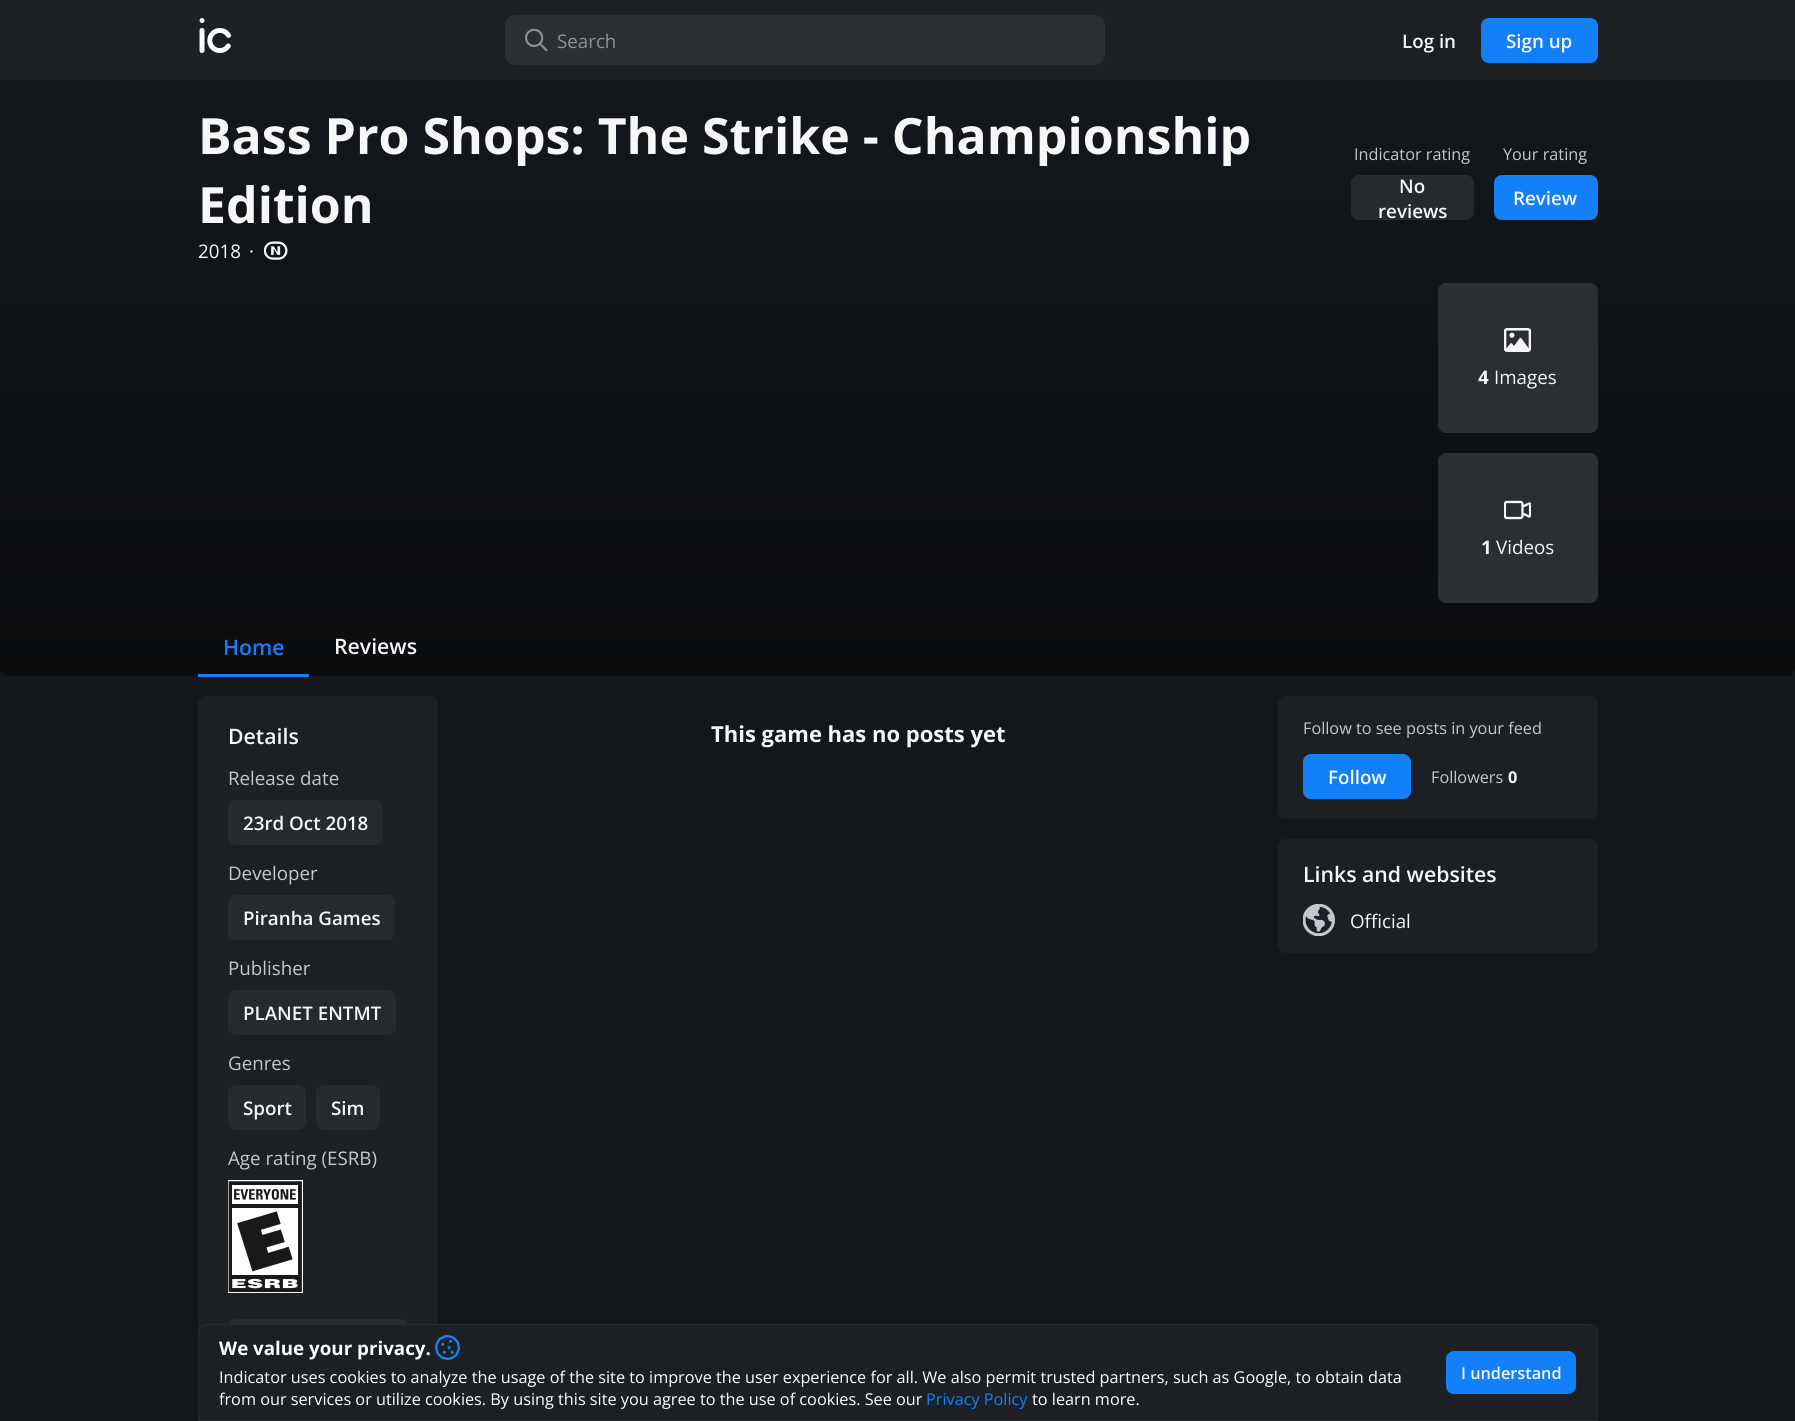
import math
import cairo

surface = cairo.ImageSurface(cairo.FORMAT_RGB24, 1795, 1421)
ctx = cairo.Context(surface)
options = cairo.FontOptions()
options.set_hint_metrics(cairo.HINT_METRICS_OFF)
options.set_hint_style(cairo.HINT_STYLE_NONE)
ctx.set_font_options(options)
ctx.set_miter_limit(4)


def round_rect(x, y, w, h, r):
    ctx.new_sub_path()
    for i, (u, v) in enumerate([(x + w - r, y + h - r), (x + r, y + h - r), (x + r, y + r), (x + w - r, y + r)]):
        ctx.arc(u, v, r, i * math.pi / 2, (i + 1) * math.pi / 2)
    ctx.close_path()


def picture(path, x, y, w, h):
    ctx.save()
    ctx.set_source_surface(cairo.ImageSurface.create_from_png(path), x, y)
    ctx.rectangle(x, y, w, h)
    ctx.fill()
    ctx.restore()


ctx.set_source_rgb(0.075, 0.09, 0.106)
ctx.paint()
ctx.set_source_rgb(0.11, 0.125, 0.141)
ctx.rectangle(0, 0, 1795, 80)
ctx.fill()
ctx.select_font_face("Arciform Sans")
ctx.set_font_size(50)
ctx.set_source_rgb(1, 1, 1)
ctx.move_to(198, 53)
ctx.show_text("ic")
ctx.set_source_rgb(0.169, 0.18, 0.196)
round_rect(506.5, 16.5, 597, 47, 8.5)
ctx.fill_preserve()
ctx.set_line_width(3)
ctx.stroke()
picture("img1.png", 525, 28, 23, 24)
ctx.select_font_face("Open Sans")
ctx.set_font_size(18.75)
ctx.set_source_rgb(0.557, 0.573, 0.592)
ctx.move_to(557, 48)
ctx.show_text("Search")
ctx.select_font_face("Open Sans SemiBold")
ctx.set_source_rgb(0.965, 0.965, 0.965)
ctx.move_to(1402, 48)
ctx.show_text("Log in")
ctx.set_source_rgb(0.078, 0.502, 0.976)
round_rect(1481, 18, 117, 45, 8)
ctx.fill()
ctx.set_source_rgb(0.965, 0.965, 0.965)
ctx.move_to(1506, 48)
ctx.show_text("Sign up")
gradient = cairo.LinearGradient(898, 676, 898, 100)
gradient.add_color_stop_rgba(0, 0.051, 0.063, 0.075, 1)
gradient.add_color_stop_rgba(0, 0.039, 0.047, 0.055, 1)
gradient.add_color_stop_rgba(1, 0.075, 0.09, 0.106, 1)
ctx.set_source(gradient)
round_rect(0, 100, 1795, 576, 8)
ctx.fill()
ctx.select_font_face("Open Sans", cairo.FONT_SLANT_NORMAL, cairo.FONT_WEIGHT_BOLD)
ctx.set_font_size(50)
ctx.set_source_rgb(0.965, 0.965, 0.965)
ctx.move_to(198, 154)
ctx.show_text("Bass Pro Shops: The Strike - Championship")
ctx.move_to(198, 223)
ctx.show_text("Edition")
ctx.select_font_face("Open Sans")
ctx.set_font_size(18.75)
ctx.move_to(198, 258)
ctx.show_text("2018")
ctx.move_to(249, 258)
ctx.show_text("·")
picture("img2.png", 264, 241, 24, 19)
ctx.set_font_size(16.25)
ctx.set_source_rgb(0.769, 0.784, 0.808)
ctx.move_to(1354, 160)
ctx.show_text("Indicator rating")
ctx.set_source_rgb(0.145, 0.165, 0.184)
round_rect(1351, 175, 123, 45, 8)
ctx.fill()
ctx.select_font_face("Open Sans SemiBold")
ctx.set_font_size(18.75)
ctx.set_source_rgb(0.965, 0.965, 0.965)
ctx.move_to(1399, 193)
ctx.show_text("No")
ctx.move_to(1378, 218)
ctx.show_text("reviews")
ctx.select_font_face("Open Sans")
ctx.set_font_size(16.25)
ctx.set_source_rgb(0.769, 0.784, 0.808)
ctx.move_to(1503, 160)
ctx.show_text("Your rating")
ctx.set_source_rgb(0.078, 0.502, 0.976)
round_rect(1494, 175, 104, 45, 8)
ctx.fill()
ctx.select_font_face("Open Sans SemiBold")
ctx.set_font_size(18.75)
ctx.set_source_rgb(0.965, 0.965, 0.965)
ctx.move_to(1513, 205)
ctx.show_text("Review")
ctx.set_source_rgb(0.169, 0.18, 0.196)
round_rect(1438, 283, 160, 150, 8)
ctx.fill()
picture("img3.png", 1504, 328, 27, 24)
ctx.select_font_face("Open Sans", cairo.FONT_SLANT_NORMAL, cairo.FONT_WEIGHT_BOLD)
ctx.set_source_rgb(0.965, 0.965, 0.965)
ctx.move_to(1478, 384)
ctx.show_text("4")
ctx.select_font_face("Open Sans")
ctx.move_to(1494, 384)
ctx.show_text("Images")
ctx.set_source_rgb(0.169, 0.18, 0.196)
round_rect(1438, 453, 160, 150, 8)
ctx.fill()
picture("img4.png", 1504, 500, 27, 20)
ctx.select_font_face("Open Sans", cairo.FONT_SLANT_NORMAL, cairo.FONT_WEIGHT_BOLD)
ctx.set_source_rgb(0.965, 0.965, 0.965)
ctx.move_to(1481, 554)
ctx.show_text("1")
ctx.select_font_face("Open Sans")
ctx.move_to(1496, 554)
ctx.show_text("Videos")
ctx.set_source_rgb(0.078, 0.502, 0.976)
ctx.rectangle(198, 674, 111, 3)
ctx.fill()
ctx.select_font_face("Open Sans SemiBold")
ctx.set_font_size(21.25)
ctx.move_to(223, 655)
ctx.show_text("Home")
ctx.set_source_rgb(0.965, 0.965, 0.965)
ctx.move_to(334, 654)
ctx.show_text("Reviews")
ctx.set_source_rgb(0.11, 0.125, 0.141)
round_rect(198, 696, 240, 693, 8)
ctx.fill()
ctx.set_source_rgb(0.965, 0.965, 0.965)
ctx.move_to(228, 744)
ctx.show_text("Details")
ctx.select_font_face("Open Sans")
ctx.set_font_size(18.75)
ctx.set_source_rgb(0.769, 0.784, 0.808)
ctx.move_to(228, 785)
ctx.show_text("Release date")
ctx.set_source_rgb(0.145, 0.165, 0.184)
round_rect(228, 800, 155, 45, 8)
ctx.fill()
ctx.select_font_face("Open Sans SemiBold")
ctx.set_source_rgb(0.965, 0.965, 0.965)
ctx.move_to(243, 830)
ctx.show_text("23rd Oct 2018")
ctx.select_font_face("Open Sans")
ctx.set_source_rgb(0.769, 0.784, 0.808)
ctx.move_to(228, 880)
ctx.show_text("Developer")
ctx.set_source_rgb(0.145, 0.165, 0.184)
round_rect(228, 895, 167, 45, 8)
ctx.fill()
ctx.select_font_face("Open Sans SemiBold")
ctx.set_source_rgb(0.965, 0.965, 0.965)
ctx.move_to(243, 925)
ctx.show_text("Piranha Games")
ctx.select_font_face("Open Sans")
ctx.set_source_rgb(0.769, 0.784, 0.808)
ctx.move_to(228, 975)
ctx.show_text("Publisher")
ctx.set_source_rgb(0.145, 0.165, 0.184)
round_rect(228, 990, 168, 45, 8)
ctx.fill()
ctx.select_font_face("Open Sans SemiBold")
ctx.set_source_rgb(0.965, 0.965, 0.965)
ctx.move_to(243, 1020)
ctx.show_text("PLANET ENTMT")
ctx.select_font_face("Open Sans")
ctx.set_source_rgb(0.769, 0.784, 0.808)
ctx.move_to(228, 1070)
ctx.show_text("Genres")
ctx.set_source_rgb(0.145, 0.165, 0.184)
round_rect(228, 1085, 78, 45, 8)
ctx.fill()
ctx.select_font_face("Open Sans SemiBold")
ctx.set_source_rgb(0.965, 0.965, 0.965)
ctx.move_to(243, 1115)
ctx.show_text("Sport")
ctx.set_source_rgb(0.145, 0.165, 0.184)
round_rect(316, 1085, 64, 45, 8)
ctx.fill()
ctx.set_source_rgb(0.965, 0.965, 0.965)
ctx.move_to(331, 1115)
ctx.show_text("Sim")
ctx.select_font_face("Open Sans")
ctx.set_source_rgb(0.769, 0.784, 0.808)
ctx.move_to(228, 1165)
ctx.show_text("Age rating (ESRB)")
picture("img5.png", 228, 1180, 75, 113)
ctx.set_source_rgb(0.145, 0.165, 0.184)
round_rect(228, 1319, 180, 45, 8)
ctx.fill()
ctx.select_font_face("Open Sans", cairo.FONT_SLANT_NORMAL, cairo.FONT_WEIGHT_BOLD)
ctx.set_font_size(22)
ctx.set_source_rgb(0.965, 0.965, 0.965)
ctx.move_to(711, 742)
ctx.show_text("This game has no posts yet")
ctx.set_source_rgb(0.11, 0.125, 0.141)
round_rect(1278, 696, 320, 123, 8)
ctx.fill()
ctx.select_font_face("Open Sans")
ctx.set_font_size(16.25)
ctx.set_source_rgb(0.769, 0.784, 0.808)
ctx.move_to(1303, 734)
ctx.show_text("Follow to see posts in your feed")
ctx.set_source_rgb(0.078, 0.502, 0.976)
round_rect(1303, 754, 108, 45, 8)
ctx.fill()
ctx.select_font_face("Open Sans SemiBold")
ctx.set_font_size(18.75)
ctx.set_source_rgb(0.965, 0.965, 0.965)
ctx.move_to(1328, 784)
ctx.show_text("Follow")
ctx.select_font_face("Open Sans")
ctx.set_font_size(16.25)
ctx.set_source_rgb(0.769, 0.784, 0.808)
ctx.move_to(1431, 783)
ctx.show_text("Followers")
ctx.select_font_face("Open Sans", cairo.FONT_SLANT_NORMAL, cairo.FONT_WEIGHT_BOLD)
ctx.set_source_rgb(0.965, 0.965, 0.965)
ctx.move_to(1508, 783)
ctx.show_text("0")
ctx.set_source_rgb(0.11, 0.125, 0.141)
round_rect(1278, 839, 320, 114, 8)
ctx.fill()
ctx.select_font_face("Open Sans SemiBold")
ctx.set_font_size(21.25)
ctx.set_source_rgb(0.965, 0.965, 0.965)
ctx.move_to(1303, 882)
ctx.show_text("Links and websites")
picture("img6.png", 1303, 904, 32, 32)
ctx.select_font_face("Open Sans")
ctx.set_font_size(18.75)
ctx.move_to(1350, 928)
ctx.show_text("Official")
ctx.set_source_rgb(0.11, 0.125, 0.141)
ctx.new_path()
ctx.move_to(206, 1324.5)
ctx.line_to(1590, 1324.5)
ctx.curve_to(1594, 1324.5, 1597.5, 1328, 1597.5, 1332)
ctx.line_to(1597.5, 1420.5)
ctx.line_to(198.5, 1420.5)
ctx.line_to(198.5, 1332)
ctx.curve_to(198.5, 1328, 202, 1324.5, 206, 1324.5)
ctx.close_path()
ctx.fill_preserve()
ctx.set_source_rgb(0.145, 0.165, 0.184)
ctx.set_line_width(1)
ctx.stroke()
ctx.select_font_face("Open Sans", cairo.FONT_SLANT_NORMAL, cairo.FONT_WEIGHT_BOLD)
ctx.set_source_rgb(1, 1, 1)
ctx.move_to(219, 1355)
ctx.show_text("We value your privacy.")
picture("img7.png", 435, 1335, 25, 25)
ctx.select_font_face("Open Sans")
ctx.set_font_size(16.25)
ctx.move_to(219, 1383)
ctx.show_text("Indicator uses cookies to analyze the usage of the site to improve the user experience for all. We also permit trusted partners, such as Google, to obtain data")
ctx.move_to(219, 1405)
ctx.show_text("from our services or utilize cookies. By using this site you agree to the use of cookies. See our")
ctx.set_source_rgb(0.078, 0.502, 0.976)
ctx.move_to(926, 1405)
ctx.show_text("Privacy Policy")
ctx.set_source_rgb(1, 1, 1)
ctx.move_to(1032, 1405)
ctx.show_text("to learn more.")
ctx.set_source_rgb(0.078, 0.502, 0.976)
round_rect(1446, 1351, 130, 43, 8)
ctx.fill()
ctx.select_font_face("Open Sans SemiBold")
ctx.set_source_rgb(0.965, 0.965, 0.965)
ctx.move_to(1461, 1379)
ctx.show_text("I understand")
surface.write_to_png("page.png")
